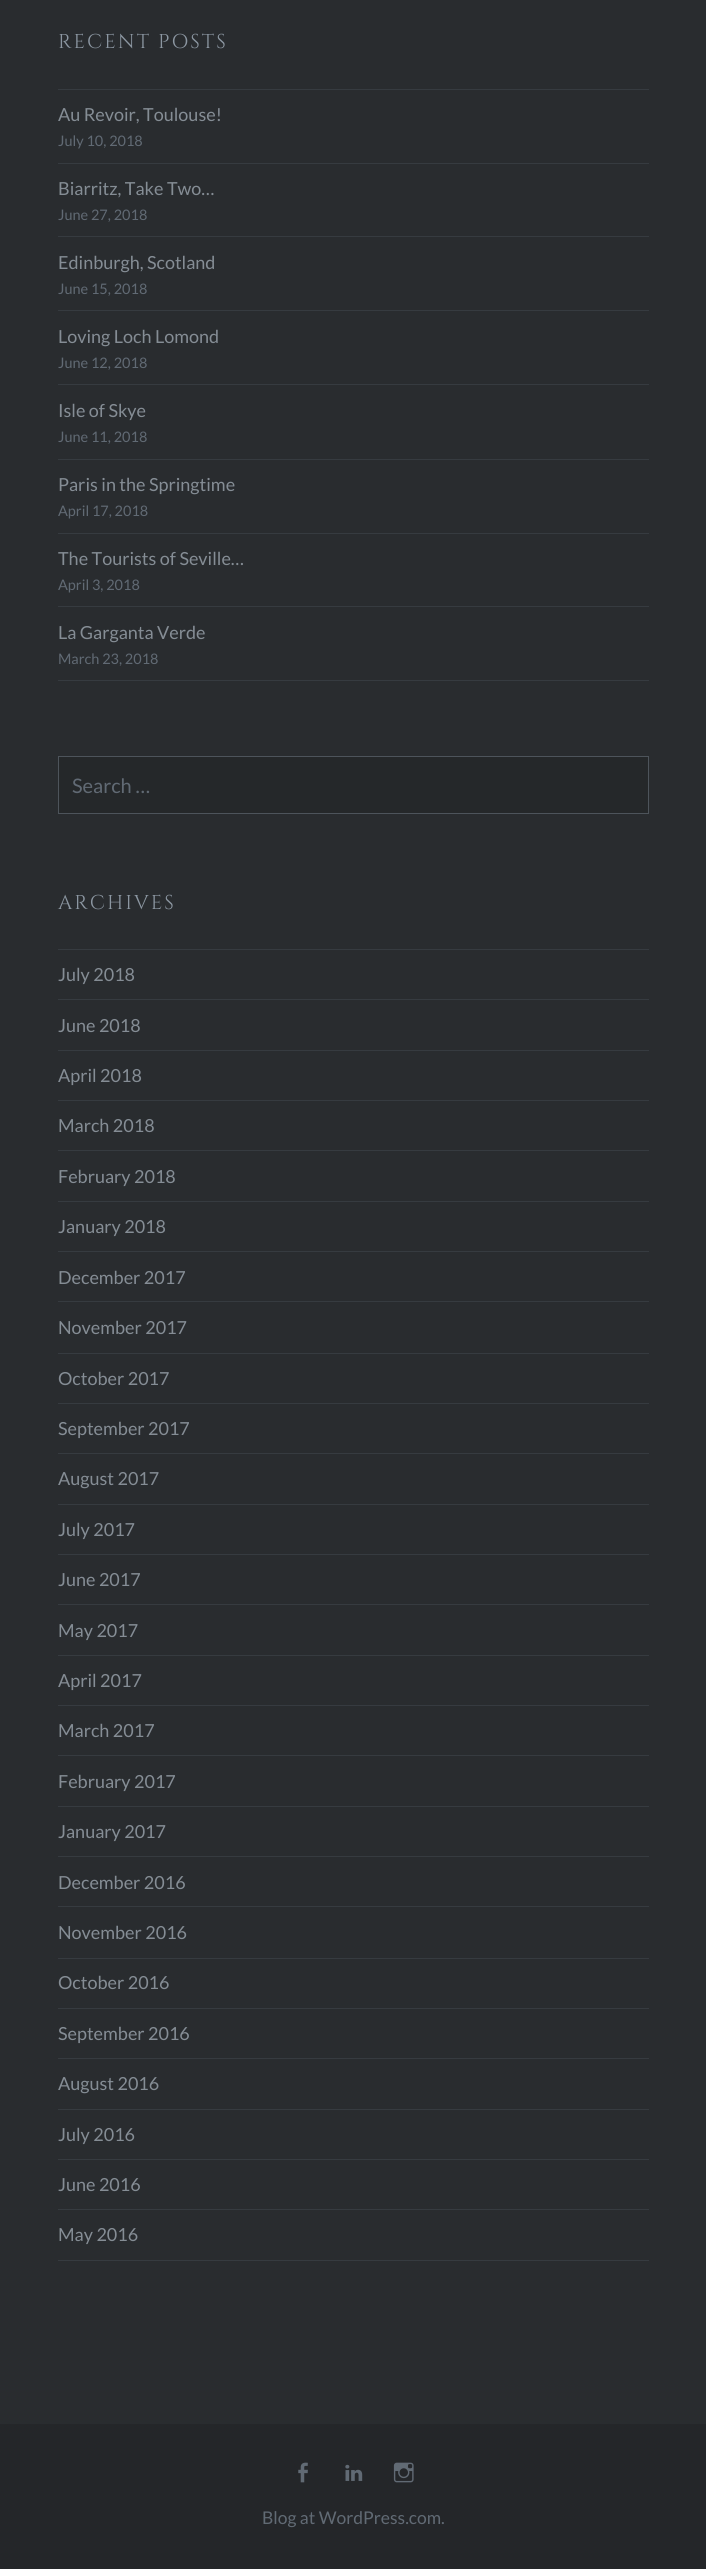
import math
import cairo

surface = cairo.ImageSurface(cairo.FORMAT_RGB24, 706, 2569)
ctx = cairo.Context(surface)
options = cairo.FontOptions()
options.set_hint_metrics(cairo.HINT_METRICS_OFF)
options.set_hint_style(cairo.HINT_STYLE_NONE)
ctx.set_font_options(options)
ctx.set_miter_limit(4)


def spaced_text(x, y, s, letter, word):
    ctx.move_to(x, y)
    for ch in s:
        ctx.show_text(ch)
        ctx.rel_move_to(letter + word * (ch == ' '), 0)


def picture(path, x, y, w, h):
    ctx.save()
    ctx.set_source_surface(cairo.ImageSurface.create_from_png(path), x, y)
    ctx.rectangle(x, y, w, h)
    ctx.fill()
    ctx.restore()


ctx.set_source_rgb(0.161, 0.173, 0.184)
ctx.paint()
ctx.select_font_face("Cinzel")
ctx.set_font_size(20)
ctx.set_source_rgb(0.549, 0.592, 0.635)
spaced_text(58, 48, "RECENT POSTS", 2, 0)
ctx.set_source_rgb(0.212, 0.231, 0.251)
ctx.rectangle(58, 89, 591, 1)
ctx.fill()
ctx.rectangle(58, 163, 591, 1)
ctx.fill()
ctx.select_font_face("Lato")
ctx.set_font_size(18)
ctx.set_source_rgb(0.522, 0.553, 0.584)
ctx.move_to(58, 121)
ctx.show_text("Au Revoir, Toulouse!")
ctx.set_font_size(14.5)
ctx.set_source_rgb(0.38, 0.416, 0.455)
ctx.move_to(58, 146)
ctx.show_text("July 10, 2018")
ctx.set_source_rgb(0.212, 0.231, 0.251)
ctx.rectangle(58, 236, 591, 1)
ctx.fill()
ctx.set_font_size(18)
ctx.set_source_rgb(0.522, 0.553, 0.584)
ctx.move_to(58, 195)
ctx.show_text("Biarritz, Take Two…")
ctx.set_font_size(14.5)
ctx.set_source_rgb(0.38, 0.416, 0.455)
ctx.move_to(58, 220)
ctx.show_text("June 27, 2018")
ctx.set_source_rgb(0.212, 0.231, 0.251)
ctx.rectangle(58, 310, 591, 1)
ctx.fill()
ctx.set_font_size(18)
ctx.set_source_rgb(0.522, 0.553, 0.584)
ctx.move_to(58, 269)
ctx.show_text("Edinburgh, Scotland")
ctx.set_font_size(14.5)
ctx.set_source_rgb(0.38, 0.416, 0.455)
ctx.move_to(58, 294)
ctx.show_text("June 15, 2018")
ctx.set_source_rgb(0.212, 0.231, 0.251)
ctx.rectangle(58, 384, 591, 1)
ctx.fill()
ctx.set_font_size(18)
ctx.set_source_rgb(0.522, 0.553, 0.584)
ctx.move_to(58, 343)
ctx.show_text("Loving Loch Lomond")
ctx.set_font_size(14.5)
ctx.set_source_rgb(0.38, 0.416, 0.455)
ctx.move_to(58, 368)
ctx.show_text("June 12, 2018")
ctx.set_source_rgb(0.212, 0.231, 0.251)
ctx.rectangle(58, 459, 591, 1)
ctx.fill()
ctx.set_font_size(18)
ctx.set_source_rgb(0.522, 0.553, 0.584)
ctx.move_to(58, 417)
ctx.show_text("Isle of Skye")
ctx.set_font_size(14.5)
ctx.set_source_rgb(0.38, 0.416, 0.455)
ctx.move_to(58, 442)
ctx.show_text("June 11, 2018")
ctx.set_source_rgb(0.212, 0.231, 0.251)
ctx.rectangle(58, 533, 591, 1)
ctx.fill()
ctx.set_font_size(18)
ctx.set_source_rgb(0.522, 0.553, 0.584)
ctx.move_to(58, 491)
ctx.show_text("Paris in the Springtime")
ctx.set_font_size(14.5)
ctx.set_source_rgb(0.38, 0.416, 0.455)
ctx.move_to(58, 516)
ctx.show_text("April 17, 2018")
ctx.set_source_rgb(0.212, 0.231, 0.251)
ctx.rectangle(58, 606, 591, 1)
ctx.fill()
ctx.set_font_size(18)
ctx.set_source_rgb(0.522, 0.553, 0.584)
ctx.move_to(58, 565)
ctx.show_text("The Tourists of Seville…")
ctx.set_font_size(14.5)
ctx.set_source_rgb(0.38, 0.416, 0.455)
ctx.move_to(58, 590)
ctx.show_text("April 3, 2018")
ctx.set_source_rgb(0.212, 0.231, 0.251)
ctx.rectangle(58, 680, 591, 1)
ctx.fill()
ctx.set_font_size(18)
ctx.set_source_rgb(0.522, 0.553, 0.584)
ctx.move_to(58, 639)
ctx.show_text("La Garganta Verde")
ctx.set_font_size(14.5)
ctx.set_source_rgb(0.38, 0.416, 0.455)
ctx.move_to(58, 664)
ctx.show_text("March 23, 2018")
ctx.set_source_rgb(0.145, 0.157, 0.165)
ctx.rectangle(58.5, 756.5, 590, 57)
ctx.fill_preserve()
ctx.set_source_rgb(0.302, 0.329, 0.357)
ctx.set_line_width(1)
ctx.stroke()
ctx.set_font_size(20)
ctx.set_source_rgb(0.38, 0.416, 0.455)
ctx.move_to(72, 793)
ctx.show_text("Search …")
ctx.select_font_face("Cinzel")
ctx.set_source_rgb(0.549, 0.592, 0.635)
spaced_text(58, 909, "ARCHIVES", 2, 0)
ctx.set_source_rgb(0.212, 0.231, 0.251)
ctx.rectangle(58, 949, 591, 1)
ctx.fill()
ctx.rectangle(58, 999, 591, 1)
ctx.fill()
ctx.select_font_face("Lato")
ctx.set_font_size(18)
ctx.set_source_rgb(0.522, 0.553, 0.584)
ctx.move_to(58, 981)
ctx.show_text("July 2018")
ctx.set_source_rgb(0.212, 0.231, 0.251)
ctx.rectangle(58, 1050, 591, 1)
ctx.fill()
ctx.set_source_rgb(0.522, 0.553, 0.584)
ctx.move_to(58, 1032)
ctx.show_text("June 2018")
ctx.set_source_rgb(0.212, 0.231, 0.251)
ctx.rectangle(58, 1100, 591, 1)
ctx.fill()
ctx.set_source_rgb(0.522, 0.553, 0.584)
ctx.move_to(58, 1082)
ctx.show_text("April 2018")
ctx.set_source_rgb(0.212, 0.231, 0.251)
ctx.rectangle(58, 1150, 591, 1)
ctx.fill()
ctx.set_source_rgb(0.522, 0.553, 0.584)
ctx.move_to(58, 1132)
ctx.show_text("March 2018")
ctx.set_source_rgb(0.212, 0.231, 0.251)
ctx.rectangle(58, 1201, 591, 1)
ctx.fill()
ctx.set_source_rgb(0.522, 0.553, 0.584)
ctx.move_to(58, 1183)
ctx.show_text("February 2018")
ctx.set_source_rgb(0.212, 0.231, 0.251)
ctx.rectangle(58, 1251, 591, 1)
ctx.fill()
ctx.set_source_rgb(0.522, 0.553, 0.584)
ctx.move_to(58, 1233)
ctx.show_text("January 2018")
ctx.set_source_rgb(0.212, 0.231, 0.251)
ctx.rectangle(58, 1301, 591, 1)
ctx.fill()
ctx.set_source_rgb(0.522, 0.553, 0.584)
ctx.move_to(58, 1284)
ctx.show_text("December 2017")
ctx.set_source_rgb(0.212, 0.231, 0.251)
ctx.rectangle(58, 1353, 591, 1)
ctx.fill()
ctx.set_source_rgb(0.522, 0.553, 0.584)
ctx.move_to(58, 1334)
ctx.show_text("November 2017")
ctx.set_source_rgb(0.212, 0.231, 0.251)
ctx.rectangle(58, 1403, 591, 1)
ctx.fill()
ctx.set_source_rgb(0.522, 0.553, 0.584)
ctx.move_to(58, 1385)
ctx.show_text("October 2017")
ctx.set_source_rgb(0.212, 0.231, 0.251)
ctx.rectangle(58, 1453, 591, 1)
ctx.fill()
ctx.set_source_rgb(0.522, 0.553, 0.584)
ctx.move_to(58, 1435)
ctx.show_text("September 2017")
ctx.set_source_rgb(0.212, 0.231, 0.251)
ctx.rectangle(58, 1504, 591, 1)
ctx.fill()
ctx.set_source_rgb(0.522, 0.553, 0.584)
ctx.move_to(58, 1485)
ctx.show_text("August 2017")
ctx.set_source_rgb(0.212, 0.231, 0.251)
ctx.rectangle(58, 1554, 591, 1)
ctx.fill()
ctx.set_source_rgb(0.522, 0.553, 0.584)
ctx.move_to(58, 1536)
ctx.show_text("July 2017")
ctx.set_source_rgb(0.212, 0.231, 0.251)
ctx.rectangle(58, 1604, 591, 1)
ctx.fill()
ctx.set_source_rgb(0.522, 0.553, 0.584)
ctx.move_to(58, 1586)
ctx.show_text("June 2017")
ctx.set_source_rgb(0.212, 0.231, 0.251)
ctx.rectangle(58, 1655, 591, 1)
ctx.fill()
ctx.set_source_rgb(0.522, 0.553, 0.584)
ctx.move_to(58, 1637)
ctx.show_text("May 2017")
ctx.set_source_rgb(0.212, 0.231, 0.251)
ctx.rectangle(58, 1705, 591, 1)
ctx.fill()
ctx.set_source_rgb(0.522, 0.553, 0.584)
ctx.move_to(58, 1687)
ctx.show_text("April 2017")
ctx.set_source_rgb(0.212, 0.231, 0.251)
ctx.rectangle(58, 1755, 591, 1)
ctx.fill()
ctx.set_source_rgb(0.522, 0.553, 0.584)
ctx.move_to(58, 1737)
ctx.show_text("March 2017")
ctx.set_source_rgb(0.212, 0.231, 0.251)
ctx.rectangle(58, 1806, 591, 1)
ctx.fill()
ctx.set_source_rgb(0.522, 0.553, 0.584)
ctx.move_to(58, 1788)
ctx.show_text("February 2017")
ctx.set_source_rgb(0.212, 0.231, 0.251)
ctx.rectangle(58, 1856, 591, 1)
ctx.fill()
ctx.set_source_rgb(0.522, 0.553, 0.584)
ctx.move_to(58, 1838)
ctx.show_text("January 2017")
ctx.set_source_rgb(0.212, 0.231, 0.251)
ctx.rectangle(58, 1906, 591, 1)
ctx.fill()
ctx.set_source_rgb(0.522, 0.553, 0.584)
ctx.move_to(58, 1889)
ctx.show_text("December 2016")
ctx.set_source_rgb(0.212, 0.231, 0.251)
ctx.rectangle(58, 1958, 591, 1)
ctx.fill()
ctx.set_source_rgb(0.522, 0.553, 0.584)
ctx.move_to(58, 1939)
ctx.show_text("November 2016")
ctx.set_source_rgb(0.212, 0.231, 0.251)
ctx.rectangle(58, 2008, 591, 1)
ctx.fill()
ctx.set_source_rgb(0.522, 0.553, 0.584)
ctx.move_to(58, 1989)
ctx.show_text("October 2016")
ctx.set_source_rgb(0.212, 0.231, 0.251)
ctx.rectangle(58, 2058, 591, 1)
ctx.fill()
ctx.set_source_rgb(0.522, 0.553, 0.584)
ctx.move_to(58, 2040)
ctx.show_text("September 2016")
ctx.set_source_rgb(0.212, 0.231, 0.251)
ctx.rectangle(58, 2109, 591, 1)
ctx.fill()
ctx.set_source_rgb(0.522, 0.553, 0.584)
ctx.move_to(58, 2090)
ctx.show_text("August 2016")
ctx.set_source_rgb(0.212, 0.231, 0.251)
ctx.rectangle(58, 2159, 591, 1)
ctx.fill()
ctx.set_source_rgb(0.522, 0.553, 0.584)
ctx.move_to(58, 2141)
ctx.show_text("July 2016")
ctx.set_source_rgb(0.212, 0.231, 0.251)
ctx.rectangle(58, 2209, 591, 1)
ctx.fill()
ctx.set_source_rgb(0.522, 0.553, 0.584)
ctx.move_to(58, 2191)
ctx.show_text("June 2016")
ctx.set_source_rgb(0.212, 0.231, 0.251)
ctx.rectangle(58, 2260, 591, 1)
ctx.fill()
ctx.set_source_rgb(0.522, 0.553, 0.584)
ctx.move_to(58, 2241)
ctx.show_text("May 2016")
ctx.set_source_rgb(0.141, 0.149, 0.161)
ctx.rectangle(0, 2424, 706, 145)
ctx.fill()
picture("img1.png", 298, 2462, 10, 21)
picture("img2.png", 345, 2464, 18, 17)
picture("img3.png", 393, 2462, 21, 21)
ctx.set_font_size(17.5)
ctx.set_source_rgb(0.38, 0.416, 0.455)
ctx.move_to(262, 2524)
ctx.show_text("Blog at WordPress.com.")
surface.write_to_png("page.png")
